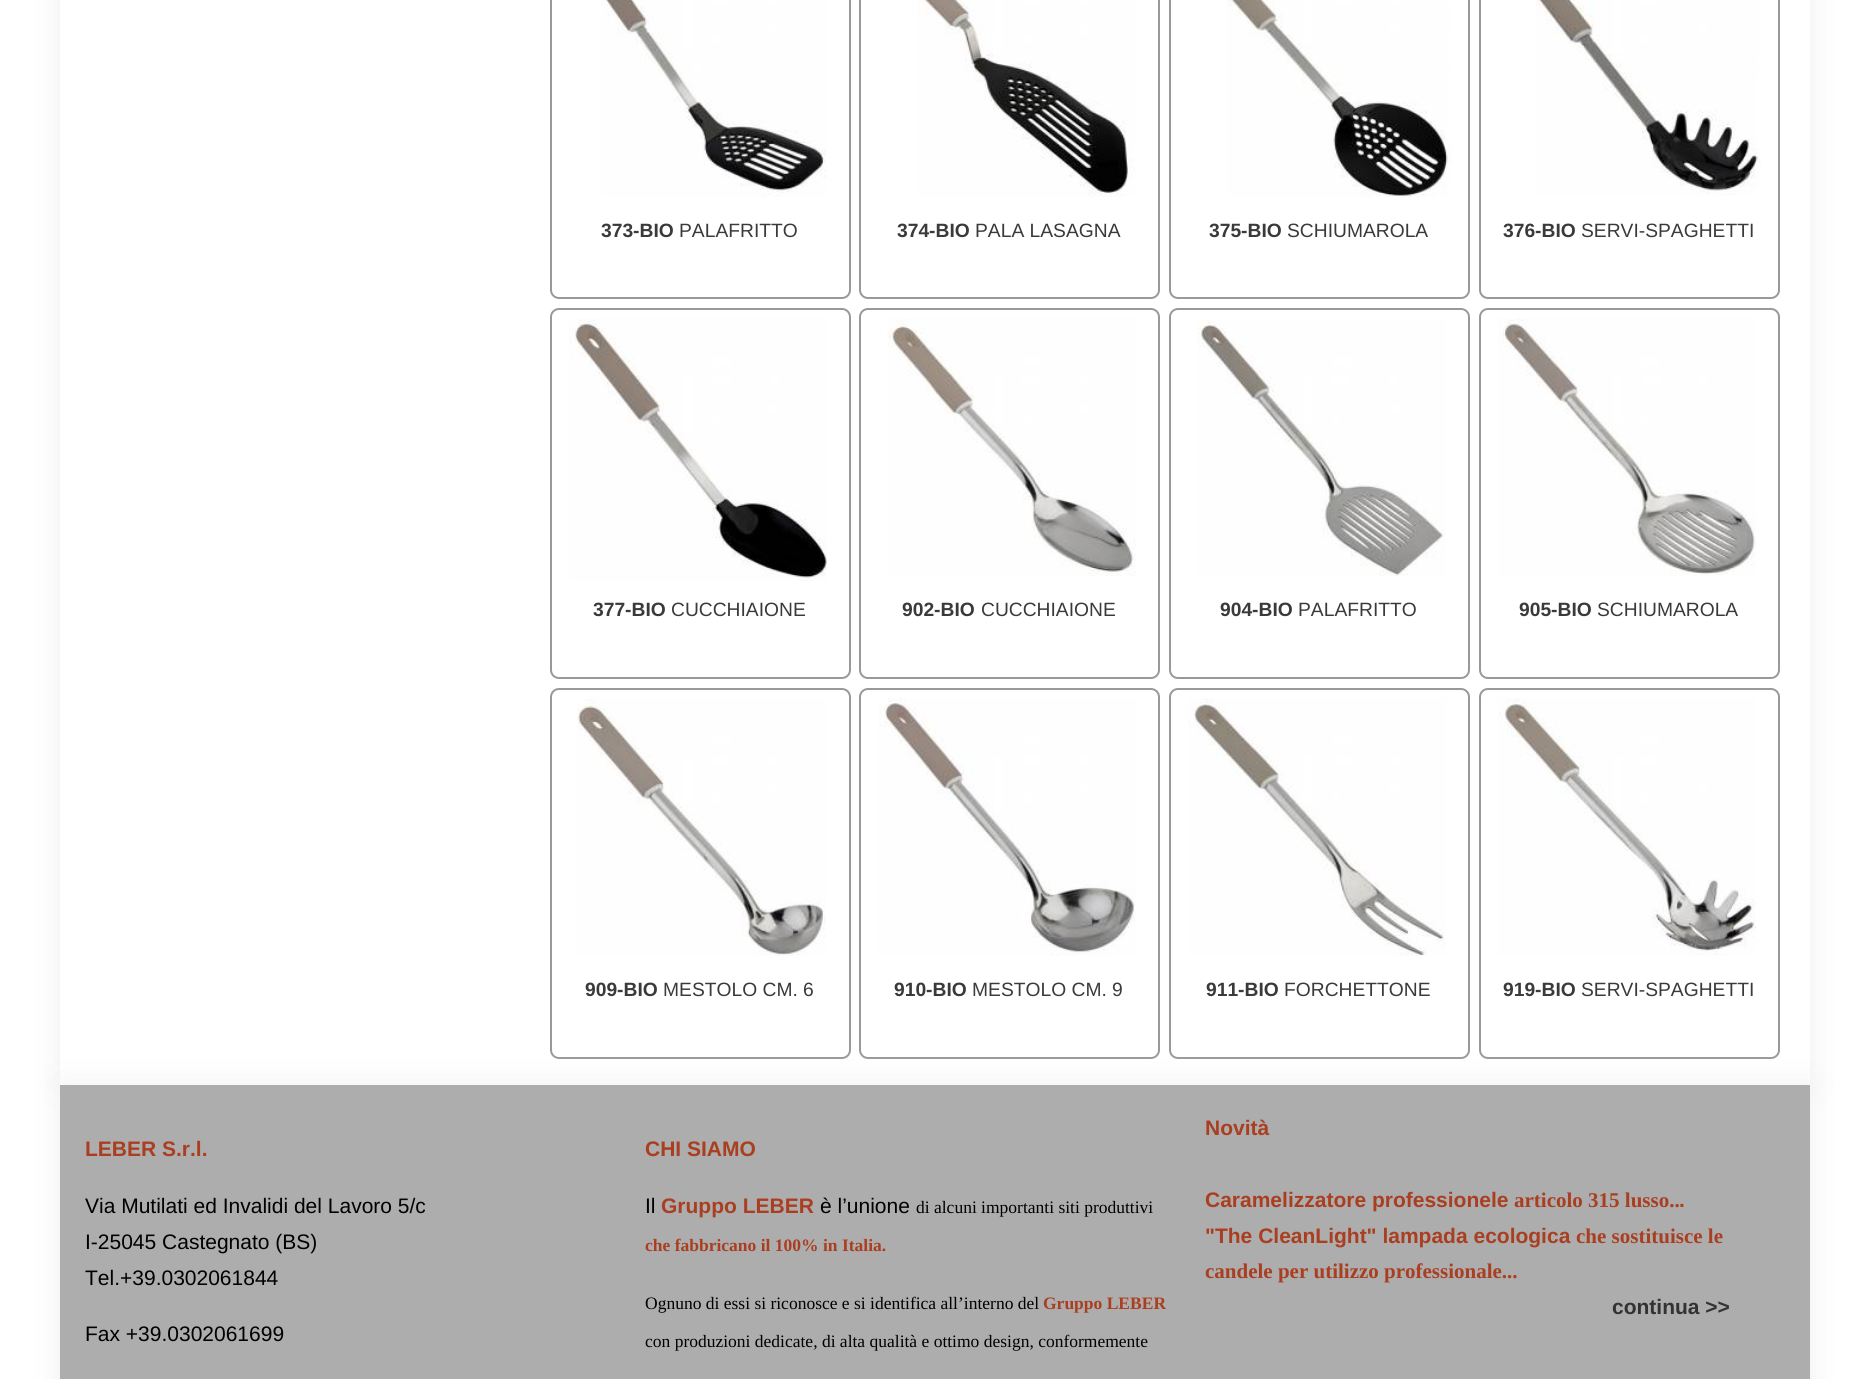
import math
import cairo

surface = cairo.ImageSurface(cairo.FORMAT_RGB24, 1867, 1379)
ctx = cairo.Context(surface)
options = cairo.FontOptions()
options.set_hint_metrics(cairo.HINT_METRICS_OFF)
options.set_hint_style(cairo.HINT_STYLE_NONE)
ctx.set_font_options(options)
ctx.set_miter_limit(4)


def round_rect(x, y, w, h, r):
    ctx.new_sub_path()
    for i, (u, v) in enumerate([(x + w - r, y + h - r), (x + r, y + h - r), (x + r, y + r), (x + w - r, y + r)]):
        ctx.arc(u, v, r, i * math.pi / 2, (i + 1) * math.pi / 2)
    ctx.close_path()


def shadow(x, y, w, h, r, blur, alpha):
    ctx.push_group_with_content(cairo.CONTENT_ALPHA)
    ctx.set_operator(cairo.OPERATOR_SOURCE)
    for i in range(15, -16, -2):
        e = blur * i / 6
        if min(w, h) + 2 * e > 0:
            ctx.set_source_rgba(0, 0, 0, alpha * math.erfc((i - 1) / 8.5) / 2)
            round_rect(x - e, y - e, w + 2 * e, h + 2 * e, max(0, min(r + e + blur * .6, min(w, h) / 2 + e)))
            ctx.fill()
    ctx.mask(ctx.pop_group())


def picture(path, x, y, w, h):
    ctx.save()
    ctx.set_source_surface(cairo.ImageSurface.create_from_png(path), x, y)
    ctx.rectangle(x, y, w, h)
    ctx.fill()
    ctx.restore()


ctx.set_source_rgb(1, 1, 1)
ctx.paint()
ctx.set_source_rgb(0.937, 0.937, 0.937)
shadow(60, -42, 1750, 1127, 0, 14, 1)
ctx.set_source_rgb(1, 1, 1)
ctx.rectangle(60, 0, 1750, 1085)
ctx.fill()
round_rect(551, -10, 299, 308, 8)
ctx.set_source_rgb(0.6, 0.6, 0.6)
ctx.stroke()
picture("img1.png", 601, 0, 226, 197)
ctx.select_font_face("Liberation Sans", cairo.FONT_SLANT_NORMAL, cairo.FONT_WEIGHT_BOLD)
ctx.set_font_size(19.25)
ctx.set_source_rgb(0.227, 0.227, 0.227)
ctx.move_to(601, 237)
ctx.show_text("373-BIO")
ctx.select_font_face("Liberation Sans")
ctx.move_to(679, 237)
ctx.show_text("PALAFRITTO")
round_rect(860, -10, 299, 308, 8)
ctx.set_source_rgb(0.6, 0.6, 0.6)
ctx.stroke()
picture("img2.png", 917, 0, 218, 197)
ctx.select_font_face("Liberation Sans", cairo.FONT_SLANT_NORMAL, cairo.FONT_WEIGHT_BOLD)
ctx.set_source_rgb(0.227, 0.227, 0.227)
ctx.move_to(897, 237)
ctx.show_text("374-BIO")
ctx.select_font_face("Liberation Sans")
ctx.move_to(975, 237)
ctx.show_text("PALA LASAGNA")
round_rect(1170, -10, 299, 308, 8)
ctx.set_source_rgb(0.6, 0.6, 0.6)
ctx.stroke()
picture("img3.png", 1227, 0, 224, 197)
ctx.select_font_face("Liberation Sans", cairo.FONT_SLANT_NORMAL, cairo.FONT_WEIGHT_BOLD)
ctx.set_source_rgb(0.227, 0.227, 0.227)
ctx.move_to(1209, 237)
ctx.show_text("375-BIO")
ctx.select_font_face("Liberation Sans")
ctx.move_to(1287, 237)
ctx.show_text("SCHIUMAROLA")
round_rect(1480, -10, 299, 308, 8)
ctx.set_source_rgb(0.6, 0.6, 0.6)
ctx.stroke()
picture("img4.png", 1536, 0, 225, 195)
ctx.select_font_face("Liberation Sans", cairo.FONT_SLANT_NORMAL, cairo.FONT_WEIGHT_BOLD)
ctx.set_source_rgb(0.227, 0.227, 0.227)
ctx.move_to(1503, 237)
ctx.show_text("376-BIO")
ctx.select_font_face("Liberation Sans")
ctx.move_to(1581, 237)
ctx.show_text("SERVI-SPAGHETTI")
round_rect(551, 309, 299, 369, 8)
ctx.set_source_rgb(0.6, 0.6, 0.6)
ctx.stroke()
picture("img5.png", 569, 318, 258, 263)
ctx.select_font_face("Liberation Sans", cairo.FONT_SLANT_NORMAL, cairo.FONT_WEIGHT_BOLD)
ctx.set_source_rgb(0.227, 0.227, 0.227)
ctx.move_to(593, 616)
ctx.show_text("377-BIO")
ctx.select_font_face("Liberation Sans")
ctx.move_to(671, 616)
ctx.show_text("CUCCHIAIONE")
round_rect(860, 309, 299, 369, 8)
ctx.set_source_rgb(0.6, 0.6, 0.6)
ctx.stroke()
picture("img6.png", 887, 318, 249, 258)
ctx.select_font_face("Liberation Sans", cairo.FONT_SLANT_NORMAL, cairo.FONT_WEIGHT_BOLD)
ctx.set_source_rgb(0.227, 0.227, 0.227)
ctx.move_to(902, 616)
ctx.show_text("902-BIO")
ctx.select_font_face("Liberation Sans")
ctx.move_to(981, 616)
ctx.show_text("CUCCHIAIONE")
round_rect(1170, 309, 299, 369, 8)
ctx.set_source_rgb(0.6, 0.6, 0.6)
ctx.stroke()
picture("img7.png", 1197, 319, 249, 257)
ctx.select_font_face("Liberation Sans", cairo.FONT_SLANT_NORMAL, cairo.FONT_WEIGHT_BOLD)
ctx.set_source_rgb(0.227, 0.227, 0.227)
ctx.move_to(1220, 616)
ctx.show_text("904-BIO")
ctx.select_font_face("Liberation Sans")
ctx.move_to(1298, 616)
ctx.show_text("PALAFRITTO")
round_rect(1480, 309, 299, 369, 8)
ctx.set_source_rgb(0.6, 0.6, 0.6)
ctx.stroke()
picture("img8.png", 1498, 318, 258, 258)
ctx.select_font_face("Liberation Sans", cairo.FONT_SLANT_NORMAL, cairo.FONT_WEIGHT_BOLD)
ctx.set_source_rgb(0.227, 0.227, 0.227)
ctx.move_to(1519, 616)
ctx.show_text("905-BIO")
ctx.select_font_face("Liberation Sans")
ctx.move_to(1597, 616)
ctx.show_text("SCHIUMAROLA")
round_rect(551, 689, 299, 369, 8)
ctx.set_source_rgb(0.6, 0.6, 0.6)
ctx.stroke()
picture("img9.png", 577, 698, 249, 258)
ctx.select_font_face("Liberation Sans", cairo.FONT_SLANT_NORMAL, cairo.FONT_WEIGHT_BOLD)
ctx.set_source_rgb(0.227, 0.227, 0.227)
ctx.move_to(585, 996)
ctx.show_text("909-BIO")
ctx.select_font_face("Liberation Sans")
ctx.move_to(663, 996)
ctx.show_text("MESTOLO CM. 6")
round_rect(860, 689, 299, 369, 8)
ctx.set_source_rgb(0.6, 0.6, 0.6)
ctx.stroke()
picture("img10.png", 878, 698, 258, 258)
ctx.select_font_face("Liberation Sans", cairo.FONT_SLANT_NORMAL, cairo.FONT_WEIGHT_BOLD)
ctx.set_source_rgb(0.227, 0.227, 0.227)
ctx.move_to(894, 996)
ctx.show_text("910-BIO")
ctx.select_font_face("Liberation Sans")
ctx.move_to(972, 996)
ctx.show_text("MESTOLO CM. 9")
round_rect(1170, 689, 299, 369, 8)
ctx.set_source_rgb(0.6, 0.6, 0.6)
ctx.stroke()
picture("img11.png", 1188, 698, 258, 258)
ctx.select_font_face("Liberation Sans", cairo.FONT_SLANT_NORMAL, cairo.FONT_WEIGHT_BOLD)
ctx.set_source_rgb(0.227, 0.227, 0.227)
ctx.move_to(1206, 996)
ctx.show_text("911-BIO")
ctx.select_font_face("Liberation Sans")
ctx.move_to(1284, 996)
ctx.show_text("FORCHETTONE")
round_rect(1480, 689, 299, 369, 8)
ctx.set_source_rgb(0.6, 0.6, 0.6)
ctx.stroke()
picture("img12.png", 1498, 698, 258, 258)
ctx.select_font_face("Liberation Sans", cairo.FONT_SLANT_NORMAL, cairo.FONT_WEIGHT_BOLD)
ctx.set_source_rgb(0.227, 0.227, 0.227)
ctx.move_to(1503, 996)
ctx.show_text("919-BIO")
ctx.select_font_face("Liberation Sans")
ctx.move_to(1581, 996)
ctx.show_text("SERVI-SPAGHETTI")
ctx.set_source_rgb(0.937, 0.937, 0.937)
shadow(60, 1085, 1750, 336, 0, 14, 1)
ctx.set_source_rgb(0.678, 0.678, 0.678)
ctx.rectangle(60, 1085, 1750, 294)
ctx.fill()
ctx.select_font_face("Liberation Sans", cairo.FONT_SLANT_NORMAL, cairo.FONT_WEIGHT_BOLD)
ctx.set_font_size(21)
ctx.set_source_rgb(0.667, 0.243, 0.125)
ctx.move_to(85, 1156)
ctx.show_text("LEBER S.r.l.")
ctx.select_font_face("Liberation Sans")
ctx.set_source_rgb(0, 0, 0)
ctx.move_to(85, 1213)
ctx.show_text("Via Mutilati ed Invalidi del Lavoro 5/c")
ctx.move_to(85, 1249)
ctx.show_text("I-25045 Castegnato (BS)")
ctx.move_to(85, 1285)
ctx.show_text("Tel.+39.0302061844")
ctx.move_to(85, 1341)
ctx.show_text("Fax +39.0302061699")
ctx.select_font_face("Liberation Sans", cairo.FONT_SLANT_NORMAL, cairo.FONT_WEIGHT_BOLD)
ctx.set_source_rgb(0.667, 0.243, 0.125)
ctx.move_to(645, 1156)
ctx.show_text("CHI SIAMO")
ctx.select_font_face("Liberation Sans")
ctx.set_source_rgb(0, 0, 0)
ctx.move_to(645, 1213)
ctx.show_text("Il")
ctx.select_font_face("Liberation Sans", cairo.FONT_SLANT_NORMAL, cairo.FONT_WEIGHT_BOLD)
ctx.set_source_rgb(0.667, 0.243, 0.125)
ctx.move_to(661, 1213)
ctx.show_text("Gruppo LEBER")
ctx.select_font_face("Liberation Sans")
ctx.set_source_rgb(0, 0, 0)
ctx.move_to(820, 1213)
ctx.show_text("è l’unione")
ctx.select_font_face("Liberation Serif")
ctx.set_font_size(17.5)
ctx.move_to(916, 1213)
ctx.show_text("di alcuni importanti siti produttivi")
ctx.select_font_face("Liberation Serif", cairo.FONT_SLANT_NORMAL, cairo.FONT_WEIGHT_BOLD)
ctx.set_source_rgb(0.667, 0.243, 0.125)
ctx.move_to(645, 1251)
ctx.show_text("che fabbricano il 100% in Italia.")
ctx.select_font_face("Liberation Serif")
ctx.set_source_rgb(0, 0, 0)
ctx.move_to(645, 1309)
ctx.show_text("Ognuno di essi si riconosce e si identifica all’interno del")
ctx.select_font_face("Liberation Serif", cairo.FONT_SLANT_NORMAL, cairo.FONT_WEIGHT_BOLD)
ctx.set_source_rgb(0.667, 0.243, 0.125)
ctx.move_to(1043, 1309)
ctx.show_text("Gruppo LEBER")
ctx.select_font_face("Liberation Serif")
ctx.set_source_rgb(0, 0, 0)
ctx.move_to(645, 1347)
ctx.show_text("con produzioni dedicate, di alta qualità e ottimo design, conformemente")
ctx.select_font_face("Liberation Sans", cairo.FONT_SLANT_NORMAL, cairo.FONT_WEIGHT_BOLD)
ctx.set_font_size(21)
ctx.set_source_rgb(0.667, 0.243, 0.125)
ctx.move_to(1205, 1135)
ctx.show_text("Novità")
ctx.move_to(1205, 1207)
ctx.show_text("Caramelizzatore professionele")
ctx.select_font_face("Liberation Serif", cairo.FONT_SLANT_NORMAL, cairo.FONT_WEIGHT_BOLD)
ctx.move_to(1514, 1207)
ctx.show_text("articolo 315 lusso..")
ctx.select_font_face("Liberation Sans", cairo.FONT_SLANT_NORMAL, cairo.FONT_WEIGHT_BOLD)
ctx.move_to(1679, 1207)
ctx.show_text(".")
ctx.move_to(1205, 1243)
ctx.show_text("\"The CleanLight\" lampada ecologica")
ctx.select_font_face("Liberation Serif", cairo.FONT_SLANT_NORMAL, cairo.FONT_WEIGHT_BOLD)
ctx.move_to(1576, 1243)
ctx.show_text("che sostituisce le")
ctx.move_to(1205, 1278)
ctx.show_text("candele per utilizzo professionale...")
ctx.select_font_face("Liberation Sans", cairo.FONT_SLANT_NORMAL, cairo.FONT_WEIGHT_BOLD)
ctx.set_source_rgb(0.2, 0.2, 0.2)
ctx.move_to(1612, 1314)
ctx.show_text("continua >>")
surface.write_to_png("page.png")
